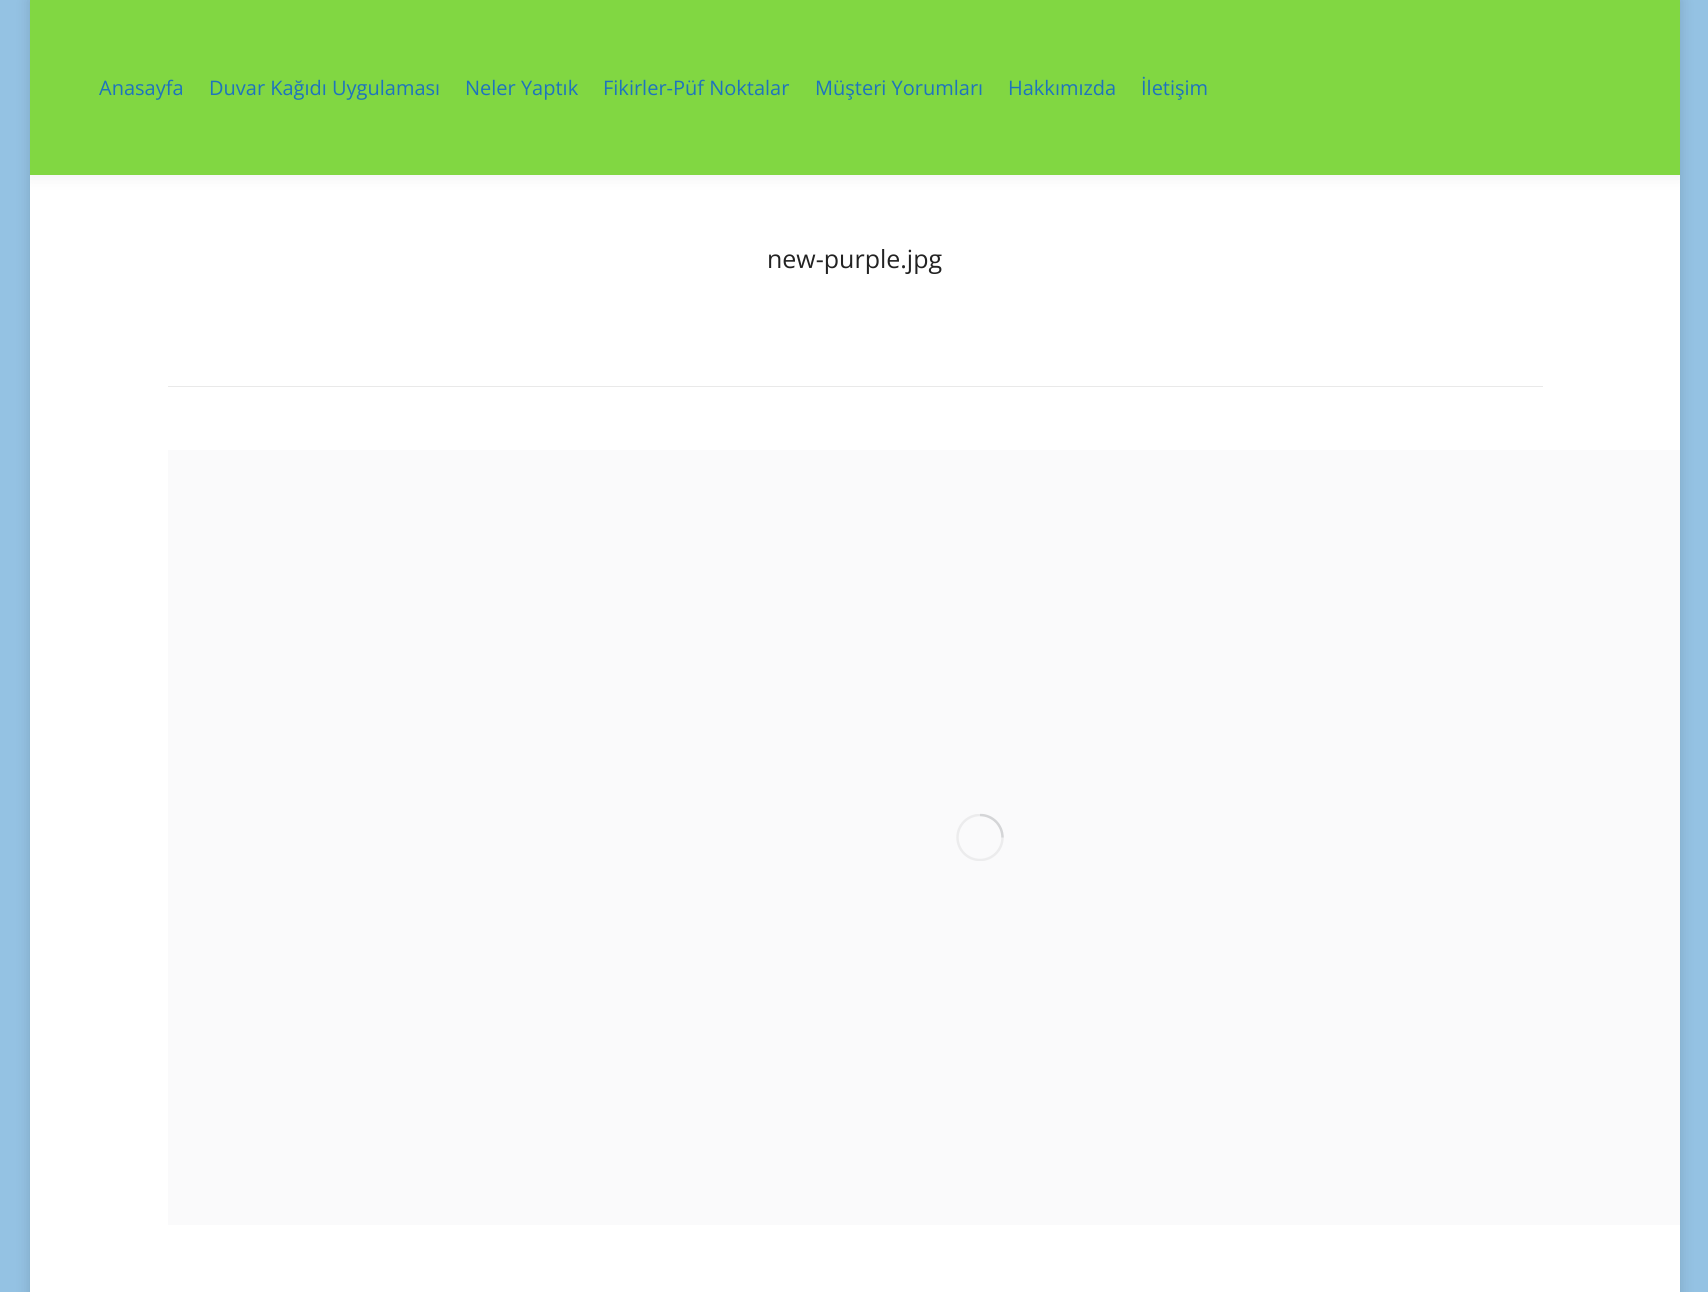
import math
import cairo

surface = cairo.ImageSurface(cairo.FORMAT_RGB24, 1708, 1292)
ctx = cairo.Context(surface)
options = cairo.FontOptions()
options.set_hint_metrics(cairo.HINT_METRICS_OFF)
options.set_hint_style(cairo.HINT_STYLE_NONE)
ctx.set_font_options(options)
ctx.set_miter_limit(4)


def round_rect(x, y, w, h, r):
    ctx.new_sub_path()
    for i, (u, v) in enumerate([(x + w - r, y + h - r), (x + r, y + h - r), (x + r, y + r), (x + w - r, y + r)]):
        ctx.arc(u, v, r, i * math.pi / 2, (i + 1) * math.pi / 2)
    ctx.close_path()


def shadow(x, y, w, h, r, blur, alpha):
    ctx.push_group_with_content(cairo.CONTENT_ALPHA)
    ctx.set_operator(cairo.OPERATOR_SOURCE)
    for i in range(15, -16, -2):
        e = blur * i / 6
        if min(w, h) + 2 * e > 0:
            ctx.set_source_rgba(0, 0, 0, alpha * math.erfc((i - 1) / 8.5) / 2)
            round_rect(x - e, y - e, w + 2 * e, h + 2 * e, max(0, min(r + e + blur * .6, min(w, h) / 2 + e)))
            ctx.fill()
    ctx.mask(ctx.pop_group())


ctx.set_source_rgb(0.58, 0.761, 0.89)
ctx.paint()
ctx.set_source_rgb(0, 0, 0)
shadow(30, 0, 1650, 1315, 0, 7.5, 0.15)
ctx.set_source_rgb(1, 1, 1)
ctx.rectangle(30, 175, 1650, 1117)
ctx.fill()
ctx.save()
ctx.rectangle(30, 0, 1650, 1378)
ctx.clip()
ctx.set_source_rgb(0, 0, 0)
shadow(29, -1, 1652, 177, 0, 9.5, 0.07)
ctx.restore()
ctx.set_source_rgb(0.506, 0.843, 0.259)
ctx.rectangle(30, 0, 1650, 175)
ctx.fill()
ctx.select_font_face("Open Sans")
ctx.set_font_size(20)
ctx.set_source_rgb(0.118, 0.451, 0.745)
ctx.move_to(99, 95)
ctx.show_text("Anasayfa")
ctx.move_to(209, 95)
ctx.show_text("Duvar Kağıdı Uygulaması")
ctx.move_to(465, 95)
ctx.show_text("Neler Yaptık")
ctx.move_to(603, 95)
ctx.show_text("Fikirler-Püf Noktalar")
ctx.move_to(815, 95)
ctx.show_text("Müşteri Yorumları")
ctx.move_to(1008, 95)
ctx.show_text("Hakkımızda")
ctx.move_to(1141, 95)
ctx.show_text("İletişim")
ctx.set_font_size(25)
ctx.set_source_rgb(0.133, 0.133, 0.133)
ctx.move_to(767, 268)
ctx.show_text("new-purple.jpg")
ctx.set_source_rgb(0.914, 0.914, 0.914)
ctx.rectangle(168, 386, 1375, 1)
ctx.fill()
ctx.set_source_rgb(0.98, 0.98, 0.984)
ctx.rectangle(168, 450, 1512, 775)
ctx.fill()
ctx.save()
ctx.rectangle(956, 814, 48, 47)
ctx.clip()
ctx.arc(980, 837.5, 22.5, 0, 2 * math.pi)
ctx.set_source_rgb(0.922, 0.922, 0.929)
ctx.set_line_width(2.5)
ctx.stroke()
ctx.restore()
ctx.new_path()
ctx.move_to(1002.5, 837.5)
ctx.curve_to(1002.5, 825, 992.5, 815, 980, 815)
ctx.set_source_rgba(0.553, 0.565, 0.584, 0.25)
ctx.set_line_width(2.5)
ctx.stroke()
surface.write_to_png("page.png")
